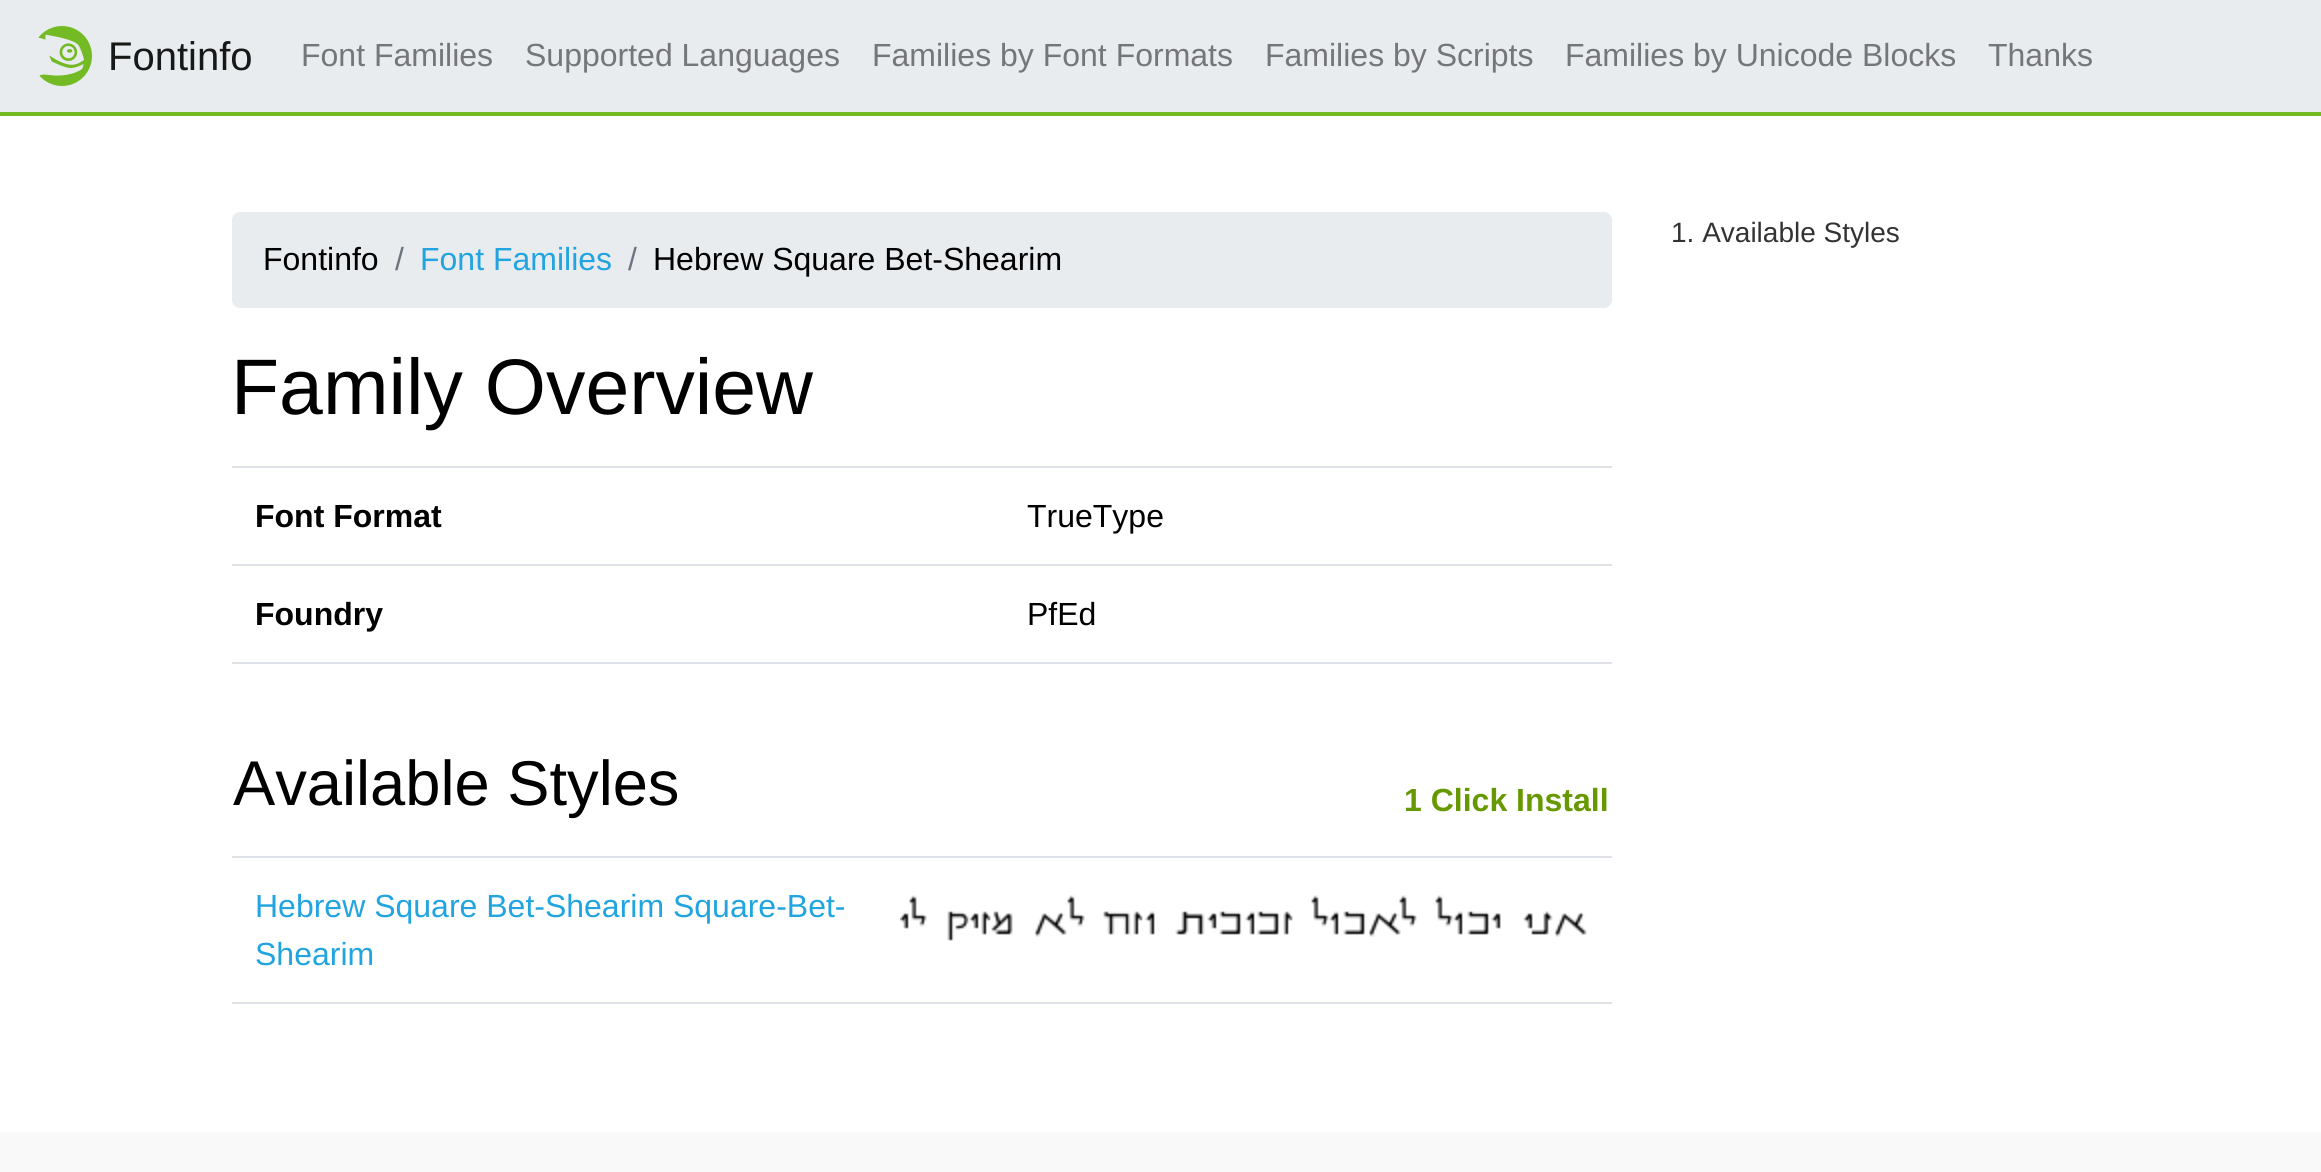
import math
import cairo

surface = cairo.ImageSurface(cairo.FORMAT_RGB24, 2321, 1172)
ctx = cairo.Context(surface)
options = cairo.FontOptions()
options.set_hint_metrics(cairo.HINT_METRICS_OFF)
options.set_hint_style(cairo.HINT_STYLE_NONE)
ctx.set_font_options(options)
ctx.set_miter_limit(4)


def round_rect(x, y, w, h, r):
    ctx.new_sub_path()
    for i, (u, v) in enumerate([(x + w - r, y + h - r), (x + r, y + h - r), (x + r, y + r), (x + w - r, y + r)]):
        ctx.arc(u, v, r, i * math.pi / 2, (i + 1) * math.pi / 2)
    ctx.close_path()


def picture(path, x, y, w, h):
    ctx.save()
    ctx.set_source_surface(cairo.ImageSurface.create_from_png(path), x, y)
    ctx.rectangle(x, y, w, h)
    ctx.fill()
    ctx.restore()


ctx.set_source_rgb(1, 1, 1)
ctx.paint()
ctx.set_source_rgb(0.914, 0.925, 0.937)
ctx.rectangle(0, 0, 2321, 112)
ctx.fill()
ctx.set_source_rgb(0.451, 0.729, 0.145)
ctx.rectangle(0, 112, 2321, 4)
ctx.fill()
picture("img1.png", 38, 26, 54, 60)
ctx.select_font_face("Liberation Sans")
ctx.set_font_size(40)
ctx.set_source_rgb(0.09, 0.094, 0.094)
ctx.move_to(108, 70)
ctx.show_text("Fontinfo")
ctx.set_font_size(32)
ctx.set_source_rgb(0.459, 0.463, 0.471)
ctx.move_to(301, 66)
ctx.show_text("Font Families")
ctx.move_to(525, 66)
ctx.show_text("Supported Languages")
ctx.move_to(872, 66)
ctx.show_text("Families by Font Formats")
ctx.move_to(1265, 66)
ctx.show_text("Families by Scripts")
ctx.move_to(1565, 66)
ctx.show_text("Families by Unicode Blocks")
ctx.move_to(1988, 66)
ctx.show_text("Thanks")
ctx.set_font_size(28)
ctx.set_source_rgb(0.2, 0.2, 0.2)
ctx.move_to(1671, 242)
ctx.show_text("1. Available Styles")
ctx.set_source_rgb(0.914, 0.925, 0.937)
round_rect(232, 212, 1380, 96, 8)
ctx.fill()
ctx.set_font_size(32)
ctx.set_source_rgb(0, 0, 0)
ctx.move_to(263, 270)
ctx.show_text("Fontinfo")
ctx.set_source_rgb(0.424, 0.459, 0.49)
ctx.move_to(395, 270)
ctx.show_text("/")
ctx.set_source_rgb(0.129, 0.643, 0.875)
ctx.move_to(420, 270)
ctx.show_text("Font Families")
ctx.set_source_rgb(0.424, 0.459, 0.49)
ctx.move_to(628, 270)
ctx.show_text("/")
ctx.set_source_rgb(0, 0, 0)
ctx.move_to(653, 270)
ctx.show_text("Hebrew Square Bet-Shearim")
ctx.set_font_size(78.75)
ctx.move_to(231, 414)
ctx.show_text("Family Overview")
ctx.select_font_face("Liberation Sans", cairo.FONT_SLANT_NORMAL, cairo.FONT_WEIGHT_BOLD)
ctx.set_font_size(32)
ctx.move_to(255, 527)
ctx.show_text("Font Format")
ctx.set_source_rgb(0.871, 0.886, 0.902)
ctx.rectangle(232, 466, 1380, 2)
ctx.fill()
ctx.select_font_face("Liberation Sans")
ctx.set_source_rgb(0, 0, 0)
ctx.move_to(1027, 527)
ctx.show_text("TrueType")
ctx.select_font_face("Liberation Sans", cairo.FONT_SLANT_NORMAL, cairo.FONT_WEIGHT_BOLD)
ctx.move_to(255, 625)
ctx.show_text("Foundry")
ctx.set_source_rgb(0.871, 0.886, 0.902)
ctx.rectangle(232, 564, 1380, 2)
ctx.fill()
ctx.rectangle(232, 662, 1380, 2)
ctx.fill()
ctx.select_font_face("Liberation Sans")
ctx.set_source_rgb(0, 0, 0)
ctx.move_to(1027, 625)
ctx.show_text("PfEd")
ctx.set_font_size(63.25)
ctx.move_to(233, 805)
ctx.show_text("Available Styles")
ctx.select_font_face("Liberation Sans", cairo.FONT_SLANT_NORMAL, cairo.FONT_WEIGHT_BOLD)
ctx.set_font_size(32)
ctx.set_source_rgb(0.4, 0.6, 0)
ctx.move_to(1404, 811)
ctx.show_text("1 Click Install")
ctx.set_source_rgb(0.871, 0.886, 0.902)
ctx.rectangle(232, 856, 1380, 2)
ctx.fill()
ctx.rectangle(232, 1002, 1380, 2)
ctx.fill()
picture("img2.png", 900, 895, 687, 46)
ctx.select_font_face("Liberation Sans")
ctx.set_source_rgb(0.129, 0.643, 0.875)
ctx.move_to(255, 917)
ctx.show_text("Hebrew Square Bet-Shearim Square-Bet-")
ctx.move_to(255, 965)
ctx.show_text("Shearim")
ctx.set_source_rgb(0.973, 0.976, 0.98)
ctx.rectangle(0, 1132, 2321, 40)
ctx.fill()
surface.write_to_png("page.png")
